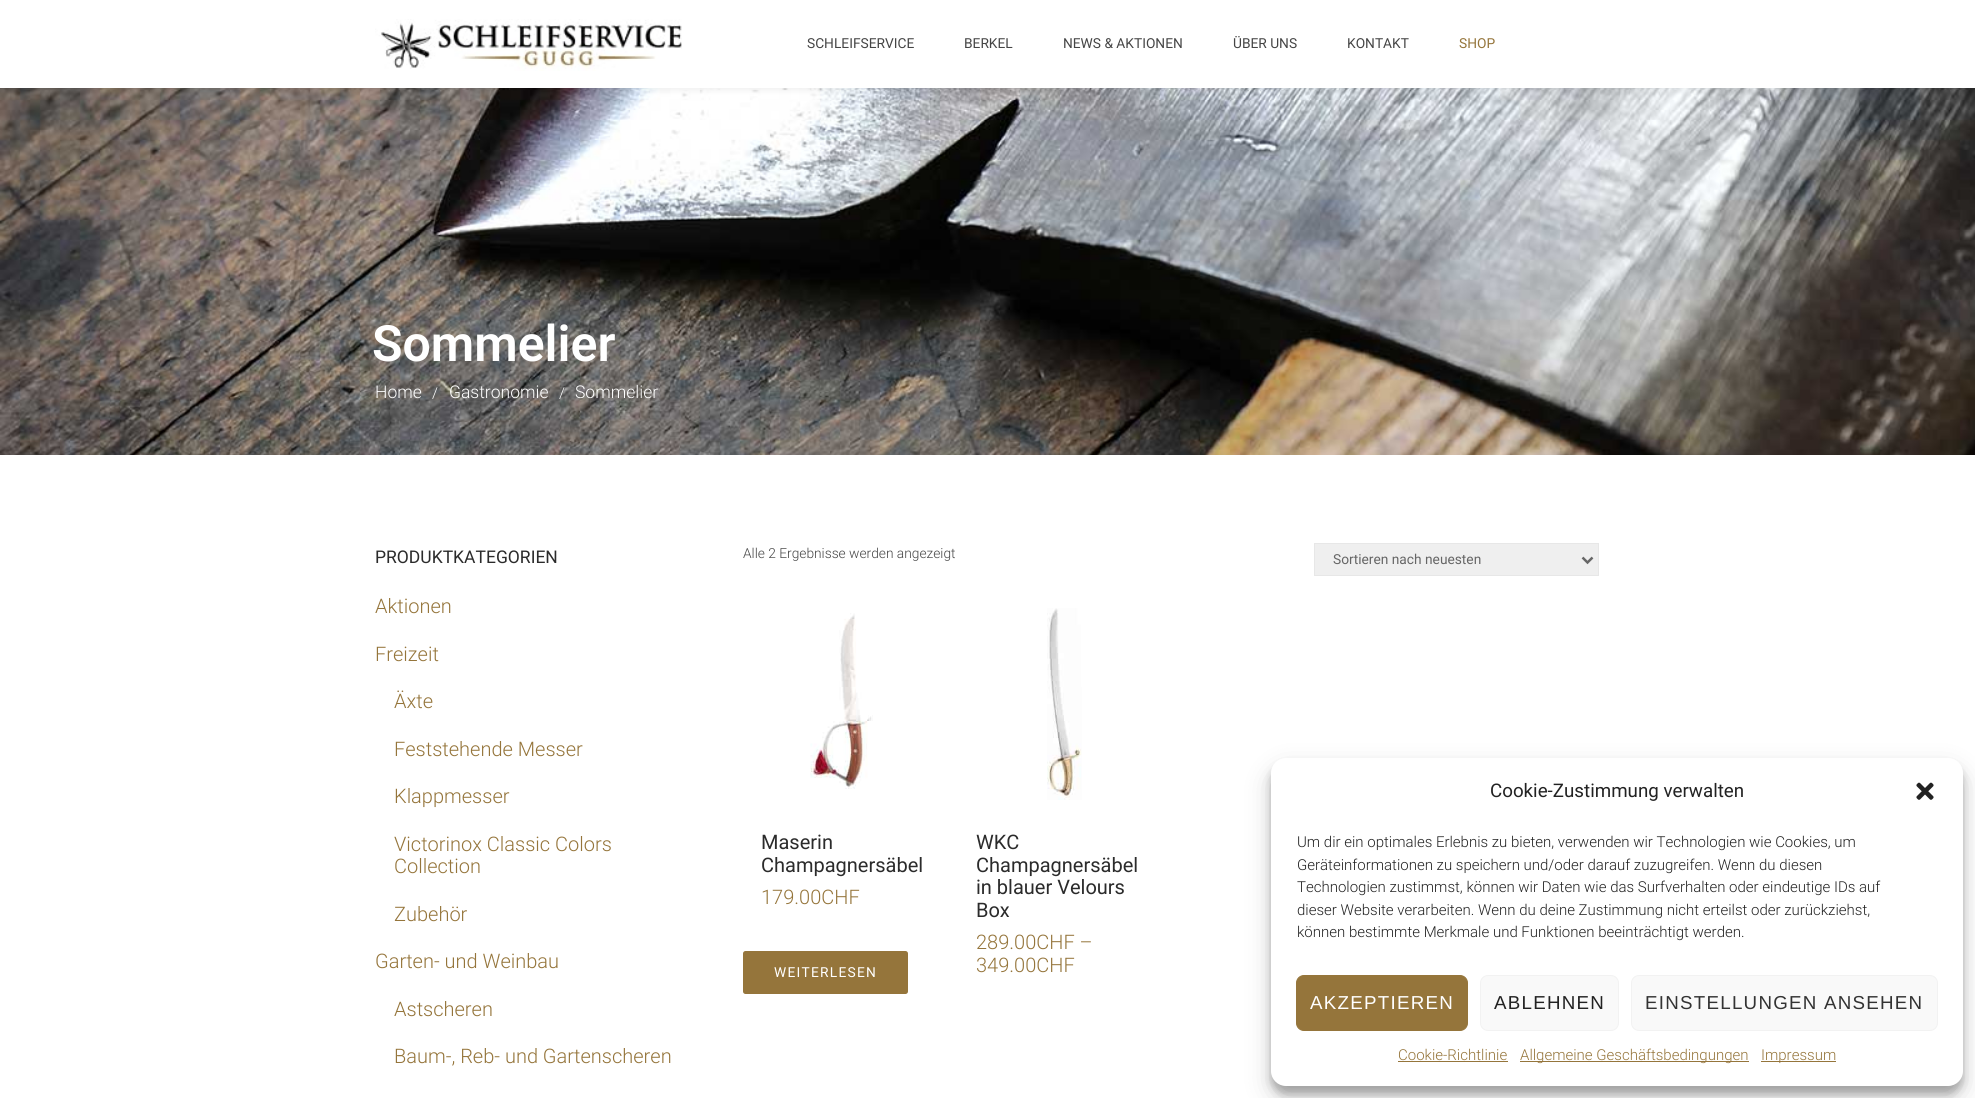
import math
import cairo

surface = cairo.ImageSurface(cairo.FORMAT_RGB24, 1975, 1098)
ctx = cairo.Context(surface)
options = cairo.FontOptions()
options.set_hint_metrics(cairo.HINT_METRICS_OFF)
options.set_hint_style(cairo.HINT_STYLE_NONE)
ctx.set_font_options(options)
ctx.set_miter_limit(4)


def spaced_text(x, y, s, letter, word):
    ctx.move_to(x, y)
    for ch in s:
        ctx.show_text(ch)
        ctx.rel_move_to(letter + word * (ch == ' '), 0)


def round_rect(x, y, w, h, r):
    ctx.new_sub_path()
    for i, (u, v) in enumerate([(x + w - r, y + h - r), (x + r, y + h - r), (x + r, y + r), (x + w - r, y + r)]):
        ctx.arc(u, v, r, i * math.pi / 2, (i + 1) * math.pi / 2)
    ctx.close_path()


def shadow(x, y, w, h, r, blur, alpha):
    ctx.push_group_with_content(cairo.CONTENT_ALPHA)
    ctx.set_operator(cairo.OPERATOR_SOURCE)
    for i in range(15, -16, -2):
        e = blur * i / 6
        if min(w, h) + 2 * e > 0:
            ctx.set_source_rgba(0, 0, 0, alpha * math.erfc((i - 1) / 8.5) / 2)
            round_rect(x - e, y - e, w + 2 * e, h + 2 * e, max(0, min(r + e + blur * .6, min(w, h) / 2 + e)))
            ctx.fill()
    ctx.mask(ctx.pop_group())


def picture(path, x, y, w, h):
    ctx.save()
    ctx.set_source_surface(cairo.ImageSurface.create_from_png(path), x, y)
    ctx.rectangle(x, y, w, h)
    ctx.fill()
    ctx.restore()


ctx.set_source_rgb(1, 1, 1)
ctx.paint()
picture("img2.png", 0, 88, 1975, 367)
ctx.set_source_rgb(0, 0, 0)
shadow(0, 1, 1975, 88, 0, 4, 0.08)
ctx.set_source_rgb(1, 1, 1)
ctx.rectangle(0, 0, 1975, 88)
ctx.fill()
picture("img1.png", 375, 19, 307, 52)
ctx.select_font_face("Roboto")
ctx.set_font_size(13.75)
ctx.set_source_rgb(0.271, 0.271, 0.271)
ctx.move_to(807, 48)
ctx.show_text("SCHLEIFSERVICE")
ctx.move_to(964, 48)
ctx.show_text("BERKEL")
ctx.move_to(1063, 48)
ctx.show_text("NEWS & AKTIONEN")
ctx.move_to(1233, 48)
ctx.show_text("ÜBER UNS")
ctx.move_to(1347, 48)
ctx.show_text("KONTAKT")
ctx.set_source_rgb(0.584, 0.459, 0.231)
ctx.move_to(1459, 48)
ctx.show_text("SHOP")
ctx.select_font_face("Roboto SemiBold")
ctx.set_font_size(50)
ctx.set_source_rgb(1, 1, 1)
ctx.move_to(372, 361)
ctx.show_text("Sommelier")
ctx.select_font_face("Roboto Light")
ctx.set_font_size(17.5)
ctx.move_to(375, 398)
ctx.show_text("Home")
ctx.set_font_size(15)
ctx.move_to(432, 398)
ctx.show_text("/")
ctx.set_font_size(17.5)
ctx.move_to(449, 398)
ctx.show_text("Gastronomie")
ctx.set_font_size(15)
ctx.move_to(559, 398)
ctx.show_text("/")
ctx.set_font_size(17.5)
ctx.move_to(575, 398)
ctx.show_text("Sommelier")
ctx.select_font_face("Roboto")
ctx.set_source_rgb(0.169, 0.169, 0.169)
ctx.move_to(375, 563)
ctx.show_text("PRODUKTKATEGORIEN")
ctx.select_font_face("Roboto Light")
ctx.set_font_size(20)
ctx.set_source_rgb(0.584, 0.459, 0.231)
ctx.move_to(375, 613)
ctx.show_text("Aktionen")
ctx.move_to(375, 661)
ctx.show_text("Freizeit")
ctx.move_to(394, 708)
ctx.show_text("Äxte")
ctx.move_to(394, 756)
ctx.show_text("Feststehende Messer")
ctx.move_to(394, 803)
ctx.show_text("Klappmesser")
ctx.move_to(394, 851)
ctx.show_text("Victorinox Classic Colors")
ctx.move_to(394, 873)
ctx.show_text("Collection")
ctx.move_to(394, 921)
ctx.show_text("Zubehör")
ctx.move_to(375, 968)
ctx.show_text("Garten- und Weinbau")
ctx.move_to(394, 1016)
ctx.show_text("Astscheren")
ctx.move_to(394, 1063)
ctx.show_text("Baum-, Reb- und Gartenscheren")
ctx.set_font_size(13.75)
ctx.set_source_rgb(0.271, 0.271, 0.271)
ctx.move_to(743, 558)
ctx.show_text("Alle 2 Ergebnisse werden angezeigt")
ctx.set_source_rgb(0.937, 0.937, 0.937)
ctx.rectangle(1314.5, 543.5, 284, 32)
ctx.fill_preserve()
ctx.set_source_rgb(0.906, 0.906, 0.906)
ctx.set_line_width(1)
ctx.stroke()
ctx.new_path()
ctx.move_to(1582.5, 557.5)
ctx.line_to(1587.5, 562.5)
ctx.line_to(1592.5, 557.5)
ctx.set_source_rgb(0.4, 0.4, 0.4)
ctx.set_line_width(2.5)
ctx.stroke()
ctx.select_font_face("Roboto")
ctx.move_to(1333, 564)
ctx.show_text("Sortieren nach neuesten")
picture("img3.png", 810, 613, 63, 176)
ctx.set_font_size(20)
ctx.set_source_rgb(0.169, 0.169, 0.169)
ctx.move_to(761, 849)
ctx.show_text("Maserin")
ctx.move_to(761, 872)
ctx.show_text("Champagnersäbel")
ctx.select_font_face("Roboto Light")
ctx.set_source_rgb(0.584, 0.459, 0.231)
ctx.move_to(761, 904)
ctx.show_text("179.00CHF")
round_rect(743, 951, 165, 43, 2.5)
ctx.fill()
ctx.select_font_face("Roboto")
ctx.set_font_size(13.75)
ctx.set_source_rgb(1, 1, 1)
spaced_text(774, 977, "WEITERLESEN", 1.25, 0)
picture("img4.png", 1047, 608, 35, 192)
ctx.set_font_size(20)
ctx.set_source_rgb(0.169, 0.169, 0.169)
ctx.move_to(976, 849)
ctx.show_text("WKC")
ctx.move_to(976, 872)
ctx.show_text("Champagnersäbel")
ctx.move_to(976, 894)
ctx.show_text("in blauer Velours")
ctx.move_to(976, 917)
ctx.show_text("Box")
ctx.select_font_face("Roboto Light")
ctx.set_source_rgb(0.584, 0.459, 0.231)
ctx.move_to(976, 949)
ctx.show_text("289.00CHF –")
ctx.move_to(976, 972)
ctx.show_text("349.00CHF")
ctx.set_source_rgb(0, 0, 0)
shadow(1271, 765, 692, 329, 15, 4, 0.23)
shadow(1271, 770, 692, 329, 15, 12.5, 0.19)
ctx.set_source_rgb(1, 1, 1)
round_rect(1271, 758, 692, 328, 15)
ctx.fill()
ctx.select_font_face("Roboto")
ctx.set_font_size(18.75)
ctx.set_source_rgb(0.133, 0.133, 0.133)
ctx.move_to(1490, 797)
ctx.show_text("Cookie-Zustimmung verwalten")
picture("img5.png", 1916, 782, 18, 18)
ctx.select_font_face("Roboto Light")
ctx.set_font_size(15)
ctx.move_to(1297, 847)
ctx.show_text("Um dir ein optimales Erlebnis zu bieten, verwenden wir Technologien wie Cookies, um")
ctx.move_to(1297, 870)
ctx.show_text("Geräteinformationen zu speichern und/oder darauf zuzugreifen. Wenn du diesen")
ctx.move_to(1297, 892)
ctx.show_text("Technologien zustimmst, können wir Daten wie das Surfverhalten oder eindeutige IDs auf")
ctx.move_to(1297, 915)
ctx.show_text("dieser Website verarbeiten. Wenn du deine Zustimmung nicht erteilst oder zurückziehst,")
ctx.move_to(1297, 937)
ctx.show_text("können bestimmte Merkmale und Funktionen beeinträchtigt werden.")
ctx.set_source_rgb(0.584, 0.459, 0.231)
round_rect(1296.5, 975.5, 171, 55, 7.5)
ctx.fill_preserve()
ctx.set_line_width(1)
ctx.stroke()
ctx.select_font_face("Liberation Sans")
ctx.set_font_size(18.75)
ctx.set_source_rgb(1, 1, 1)
spaced_text(1310, 1009, "AKZEPTIEREN", 1.25, 0)
ctx.set_source_rgb(0.976, 0.976, 0.976)
round_rect(1480.5, 975.5, 138, 55, 7.5)
ctx.fill_preserve()
ctx.set_source_rgb(0.949, 0.949, 0.949)
ctx.stroke()
ctx.set_source_rgb(0.133, 0.133, 0.133)
spaced_text(1494, 1009, "ABLEHNEN", 1.25, 0)
ctx.set_source_rgb(0.976, 0.976, 0.976)
round_rect(1631.5, 975.5, 306, 55, 7.5)
ctx.fill_preserve()
ctx.set_source_rgb(0.949, 0.949, 0.949)
ctx.stroke()
ctx.set_source_rgb(0.2, 0.2, 0.2)
spaced_text(1645, 1009, "EINSTELLUNGEN ANSEHEN", 1.25, 0)
ctx.select_font_face("Roboto Light")
ctx.set_font_size(15)
ctx.set_source_rgb(0.584, 0.459, 0.231)
ctx.move_to(1398, 1060)
ctx.show_text("Cookie-Richtlinie")
ctx.rectangle(1398, 1061, 110, 1)
ctx.fill()
ctx.rectangle(1520, 1061, 229, 1)
ctx.fill()
ctx.move_to(1520, 1060)
ctx.show_text("Allgemeine Geschäftsbedingungen")
ctx.rectangle(1761, 1061, 75, 1)
ctx.fill()
ctx.move_to(1761, 1060)
ctx.show_text("Impressum")
surface.write_to_png("page.png")
